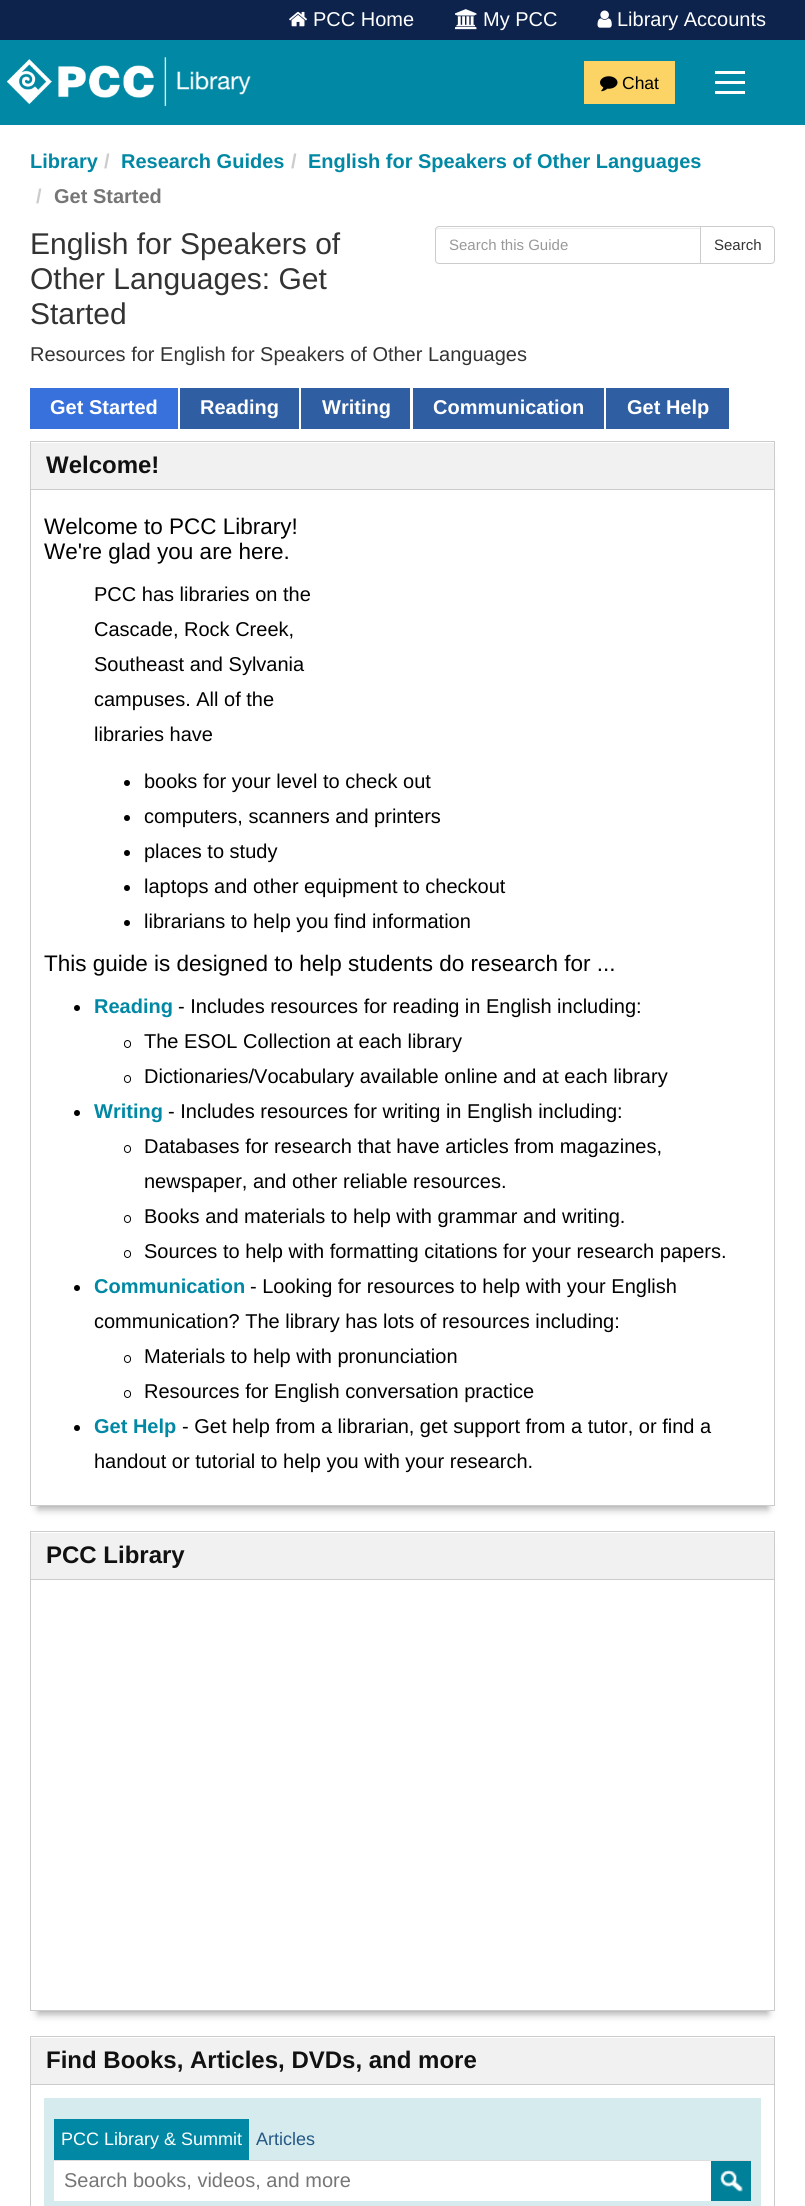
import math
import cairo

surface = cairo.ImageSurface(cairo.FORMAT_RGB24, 805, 2206)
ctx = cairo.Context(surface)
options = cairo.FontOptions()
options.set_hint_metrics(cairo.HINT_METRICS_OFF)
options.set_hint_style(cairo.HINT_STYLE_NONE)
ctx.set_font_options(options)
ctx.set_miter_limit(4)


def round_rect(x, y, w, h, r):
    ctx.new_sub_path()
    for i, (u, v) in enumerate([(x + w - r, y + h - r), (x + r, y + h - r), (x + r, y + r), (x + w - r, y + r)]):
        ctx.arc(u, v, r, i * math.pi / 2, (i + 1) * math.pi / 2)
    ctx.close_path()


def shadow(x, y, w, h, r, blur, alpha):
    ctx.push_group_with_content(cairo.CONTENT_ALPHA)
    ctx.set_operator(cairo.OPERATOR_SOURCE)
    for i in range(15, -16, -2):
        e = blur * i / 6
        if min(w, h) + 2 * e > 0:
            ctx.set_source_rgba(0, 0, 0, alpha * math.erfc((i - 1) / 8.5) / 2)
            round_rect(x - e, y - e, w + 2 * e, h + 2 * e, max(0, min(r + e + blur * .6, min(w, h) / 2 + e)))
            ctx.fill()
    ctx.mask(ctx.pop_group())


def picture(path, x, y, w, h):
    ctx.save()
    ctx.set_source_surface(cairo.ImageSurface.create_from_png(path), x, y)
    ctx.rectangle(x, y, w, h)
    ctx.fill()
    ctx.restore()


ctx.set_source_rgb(1, 1, 1)
ctx.paint()
ctx.set_source_rgb(0.051, 0.137, 0.298)
ctx.rectangle(0, 0, 805, 40)
ctx.fill()
picture("img1.png", 289, 11, 18, 16)
ctx.select_font_face("Liberation Sans")
ctx.set_font_size(20)
ctx.set_source_rgb(1, 1, 1)
ctx.move_to(313, 26)
ctx.show_text("PCC Home")
picture("img2.png", 455, 9, 22, 21)
ctx.move_to(483, 26)
ctx.show_text("My PCC")
picture("img3.png", 597, 10, 15, 18)
ctx.move_to(617, 26)
ctx.show_text("Library Accounts")
ctx.set_source_rgb(0, 0.533, 0.643)
ctx.rectangle(0, 40, 805, 85)
ctx.fill()
picture("img4.png", 7, 57, 244, 50)
ctx.set_source_rgb(0.984, 0.831, 0.396)
ctx.rectangle(584, 61, 91, 43)
ctx.fill()
picture("img5.png", 600, 76, 18, 16)
ctx.set_font_size(17.5)
ctx.set_source_rgb(0, 0, 0)
ctx.move_to(622, 89)
ctx.show_text("Chat")
ctx.set_source_rgb(1, 1, 1)
ctx.rectangle(715, 71, 30, 3)
ctx.fill()
ctx.rectangle(715, 81, 30, 3)
ctx.fill()
ctx.rectangle(715, 91, 30, 3)
ctx.fill()
ctx.select_font_face("Liberation Sans", cairo.FONT_SLANT_NORMAL, cairo.FONT_WEIGHT_BOLD)
ctx.set_font_size(20)
ctx.set_source_rgb(0, 0.533, 0.643)
ctx.move_to(30, 168)
ctx.show_text("Library")
ctx.set_source_rgb(0.8, 0.8, 0.8)
ctx.move_to(104, 168)
ctx.show_text("/")
ctx.set_source_rgb(0, 0.533, 0.643)
ctx.move_to(121, 168)
ctx.show_text("Research Guides")
ctx.set_source_rgb(0.8, 0.8, 0.8)
ctx.move_to(291, 168)
ctx.show_text("/")
ctx.set_source_rgb(0, 0.533, 0.643)
ctx.move_to(308, 168)
ctx.show_text("English for Speakers of Other Languages")
ctx.set_source_rgb(0.8, 0.8, 0.8)
ctx.move_to(36, 203)
ctx.show_text("/")
ctx.set_source_rgb(0.463, 0.463, 0.463)
ctx.move_to(54, 203)
ctx.show_text("Get Started")
ctx.select_font_face("Liberation Sans")
ctx.set_font_size(30)
ctx.set_source_rgb(0.2, 0.2, 0.2)
ctx.move_to(30, 254)
ctx.show_text("English for Speakers of")
ctx.move_to(30, 289)
ctx.show_text("Other Languages: Get")
ctx.move_to(30, 324)
ctx.show_text("Started")
ctx.set_font_size(20)
ctx.move_to(30, 361)
ctx.show_text("Resources for English for Speakers of Other Languages")
ctx.set_source_rgb(0.925, 0.925, 0.925)
ctx.new_path()
ctx.move_to(439, 229)
ctx.line_to(700, 229)
ctx.line_to(700, 228)
ctx.line_to(438, 228)
ctx.curve_to(437, 228, 436, 229, 436, 231)
ctx.curve_to(436, 230, 437, 229, 439, 229)
ctx.close_path()
ctx.fill()
ctx.new_path()
ctx.move_to(439, 226.5)
ctx.line_to(700.5, 226.5)
ctx.line_to(700.5, 263.5)
ctx.line_to(439, 263.5)
ctx.curve_to(437, 263.5, 435.5, 262, 435.5, 260)
ctx.line_to(435.5, 230)
ctx.curve_to(435.5, 228, 437, 226.5, 439, 226.5)
ctx.close_path()
ctx.set_source_rgb(0.8, 0.8, 0.8)
ctx.set_line_width(1)
ctx.stroke()
ctx.set_font_size(15)
ctx.set_source_rgb(0.6, 0.6, 0.6)
ctx.move_to(449, 250)
ctx.show_text("Search this Guide")
ctx.set_source_rgb(1, 1, 1)
ctx.new_path()
ctx.move_to(700.5, 226.5)
ctx.line_to(771, 226.5)
ctx.curve_to(773, 226.5, 774.5, 228, 774.5, 230)
ctx.line_to(774.5, 260)
ctx.curve_to(774.5, 262, 773, 263.5, 771, 263.5)
ctx.line_to(700.5, 263.5)
ctx.close_path()
ctx.fill_preserve()
ctx.set_source_rgb(0.8, 0.8, 0.8)
ctx.stroke()
ctx.set_source_rgb(0.2, 0.2, 0.2)
ctx.move_to(714, 250)
ctx.show_text("Search")
ctx.set_source_rgb(0.22, 0.443, 0.863)
ctx.rectangle(30, 388, 148, 41)
ctx.fill()
ctx.select_font_face("Liberation Sans", cairo.FONT_SLANT_NORMAL, cairo.FONT_WEIGHT_BOLD)
ctx.set_font_size(20)
ctx.set_source_rgb(1, 1, 1)
ctx.move_to(50, 414)
ctx.show_text("Get Started")
ctx.set_source_rgb(0.184, 0.369, 0.635)
ctx.rectangle(180, 388, 119, 41)
ctx.fill()
ctx.set_source_rgb(1, 1, 1)
ctx.move_to(200, 414)
ctx.show_text("Reading")
ctx.set_source_rgb(0.184, 0.369, 0.635)
ctx.rectangle(301, 388, 109, 41)
ctx.fill()
ctx.set_source_rgb(1, 1, 1)
ctx.move_to(322, 414)
ctx.show_text("Writing")
ctx.set_source_rgb(0.184, 0.369, 0.635)
ctx.rectangle(413, 388, 191, 41)
ctx.fill()
ctx.set_source_rgb(1, 1, 1)
ctx.move_to(433, 414)
ctx.show_text("Communication")
ctx.set_source_rgb(0.184, 0.369, 0.635)
ctx.rectangle(606, 388, 123, 41)
ctx.fill()
ctx.set_source_rgb(1, 1, 1)
ctx.move_to(627, 414)
ctx.show_text("Get Help")
ctx.save()
ctx.set_fill_rule(cairo.FILL_RULE_EVEN_ODD)
ctx.new_path()
ctx.move_to(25, 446)
ctx.line_to(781, 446)
ctx.line_to(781, 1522)
ctx.line_to(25, 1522)
ctx.close_path()
ctx.move_to(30, 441)
ctx.line_to(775, 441)
ctx.line_to(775, 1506)
ctx.line_to(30, 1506)
ctx.close_path()
ctx.clip()
ctx.set_source_rgb(0.667, 0.667, 0.667)
shadow(38, 459, 730, 1050, 0, 4, 1)
ctx.restore()
ctx.rectangle(30.5, 441.5, 744, 1064)
ctx.set_source_rgb(0.8, 0.8, 0.8)
ctx.stroke()
ctx.set_source_rgb(0.945, 0.945, 0.945)
ctx.rectangle(31, 443, 743, 46)
ctx.fill()
ctx.set_source_rgb(0.8, 0.8, 0.8)
ctx.rectangle(31, 489, 743, 1)
ctx.fill()
ctx.set_font_size(24)
ctx.set_source_rgb(0.067, 0.067, 0.067)
ctx.move_to(46, 473)
ctx.show_text("Welcome!")
ctx.select_font_face("Liberation Sans")
ctx.set_font_size(22.5)
ctx.set_source_rgb(0, 0, 0)
ctx.move_to(44, 534)
ctx.show_text("Welcome to PCC Library!")
ctx.move_to(44, 559)
ctx.show_text("We're glad you are here.")
ctx.set_font_size(20)
ctx.move_to(94, 601)
ctx.show_text("PCC has libraries on the")
ctx.move_to(94, 636)
ctx.show_text("Cascade, Rock Creek,")
ctx.move_to(94, 671)
ctx.show_text("Southeast and Sylvania")
ctx.move_to(94, 706)
ctx.show_text("campuses. All of the")
ctx.move_to(94, 741)
ctx.show_text("libraries have")
ctx.new_path()
ctx.arc(127, 783, 3, 0, 2 * math.pi)
ctx.fill()
ctx.move_to(144, 788)
ctx.show_text("books for your level to check out")
ctx.new_path()
ctx.arc(127, 818, 3, 0, 2 * math.pi)
ctx.fill()
ctx.move_to(144, 823)
ctx.show_text("computers, scanners and printers")
ctx.new_path()
ctx.arc(127, 853, 3, 0, 2 * math.pi)
ctx.fill()
ctx.move_to(144, 858)
ctx.show_text("places to study")
ctx.new_path()
ctx.arc(127, 888, 3, 0, 2 * math.pi)
ctx.fill()
ctx.move_to(144, 893)
ctx.show_text("laptops and other equipment to checkout")
ctx.new_path()
ctx.arc(127, 923, 3, 0, 2 * math.pi)
ctx.fill()
ctx.move_to(144, 928)
ctx.show_text("librarians to help you find information")
ctx.set_font_size(22.5)
ctx.move_to(44, 971)
ctx.show_text("This guide is designed to help students do research for ...")
ctx.new_path()
ctx.arc(77, 1008, 3, 0, 2 * math.pi)
ctx.fill()
ctx.select_font_face("Liberation Sans", cairo.FONT_SLANT_NORMAL, cairo.FONT_WEIGHT_BOLD)
ctx.set_font_size(20)
ctx.set_source_rgb(0, 0.533, 0.643)
ctx.move_to(94, 1013)
ctx.show_text("Reading")
ctx.select_font_face("Liberation Sans")
ctx.set_source_rgb(0, 0, 0)
ctx.move_to(178, 1013)
ctx.show_text("- Includes resources for reading in English including:")
round_rect(124.5, 1040.5, 6, 7, 3)
ctx.stroke()
ctx.move_to(144, 1048)
ctx.show_text("The ESOL Collection at each library")
round_rect(124.5, 1075.5, 6, 7, 3)
ctx.stroke()
ctx.move_to(144, 1083)
ctx.show_text("Dictionaries/Vocabulary available online and at each library")
ctx.new_path()
ctx.arc(77, 1113, 3, 0, 2 * math.pi)
ctx.fill()
ctx.select_font_face("Liberation Sans", cairo.FONT_SLANT_NORMAL, cairo.FONT_WEIGHT_BOLD)
ctx.set_source_rgb(0, 0.533, 0.643)
ctx.move_to(94, 1118)
ctx.show_text("Writing")
ctx.select_font_face("Liberation Sans")
ctx.set_source_rgb(0, 0, 0)
ctx.move_to(168, 1118)
ctx.show_text("- Includes resources for writing in English including:")
round_rect(124.5, 1145.5, 6, 7, 3)
ctx.stroke()
ctx.move_to(144, 1153)
ctx.show_text("Databases for research that have articles from magazines,")
ctx.move_to(144, 1188)
ctx.show_text("newspaper, and other reliable resources.")
round_rect(124.5, 1215.5, 6, 7, 3)
ctx.stroke()
ctx.move_to(144, 1223)
ctx.show_text("Books and materials to help with grammar and writing.")
round_rect(124.5, 1250.5, 6, 7, 3)
ctx.stroke()
ctx.move_to(144, 1258)
ctx.show_text("Sources to help with formatting citations for your research papers.")
ctx.new_path()
ctx.arc(77, 1288, 3, 0, 2 * math.pi)
ctx.fill()
ctx.select_font_face("Liberation Sans", cairo.FONT_SLANT_NORMAL, cairo.FONT_WEIGHT_BOLD)
ctx.set_source_rgb(0, 0.533, 0.643)
ctx.move_to(94, 1293)
ctx.show_text("Communication")
ctx.select_font_face("Liberation Sans")
ctx.set_source_rgb(0, 0, 0)
ctx.move_to(250, 1293)
ctx.show_text("- Looking for resources to help with your English")
ctx.move_to(94, 1328)
ctx.show_text("communication? The library has lots of resources including:")
round_rect(124.5, 1355.5, 6, 7, 3)
ctx.stroke()
ctx.move_to(144, 1363)
ctx.show_text("Materials to help with pronunciation")
round_rect(124.5, 1390.5, 6, 7, 3)
ctx.stroke()
ctx.move_to(144, 1398)
ctx.show_text("Resources for English conversation practice")
ctx.new_path()
ctx.arc(77, 1428, 3, 0, 2 * math.pi)
ctx.fill()
ctx.select_font_face("Liberation Sans", cairo.FONT_SLANT_NORMAL, cairo.FONT_WEIGHT_BOLD)
ctx.set_source_rgb(0, 0.533, 0.643)
ctx.move_to(94, 1433)
ctx.show_text("Get Help")
ctx.select_font_face("Liberation Sans")
ctx.set_source_rgb(0, 0, 0)
ctx.move_to(182, 1433)
ctx.show_text("- Get help from a librarian, get support from a tutor, or find a")
ctx.move_to(94, 1468)
ctx.show_text("handout or tutorial to help you with your research.")
ctx.save()
ctx.set_fill_rule(cairo.FILL_RULE_EVEN_ODD)
ctx.new_path()
ctx.move_to(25, 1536)
ctx.line_to(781, 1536)
ctx.line_to(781, 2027)
ctx.line_to(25, 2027)
ctx.close_path()
ctx.move_to(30, 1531)
ctx.line_to(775, 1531)
ctx.line_to(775, 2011)
ctx.line_to(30, 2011)
ctx.close_path()
ctx.clip()
ctx.set_source_rgb(0.667, 0.667, 0.667)
shadow(38, 1549, 730, 465, 0, 4, 1)
ctx.restore()
ctx.rectangle(30.5, 1531.5, 744, 479)
ctx.set_source_rgb(0.8, 0.8, 0.8)
ctx.stroke()
ctx.set_source_rgb(0.945, 0.945, 0.945)
ctx.rectangle(31, 1533, 743, 46)
ctx.fill()
ctx.set_source_rgb(0.8, 0.8, 0.8)
ctx.rectangle(31, 1579, 743, 1)
ctx.fill()
ctx.select_font_face("Liberation Sans", cairo.FONT_SLANT_NORMAL, cairo.FONT_WEIGHT_BOLD)
ctx.set_font_size(24)
ctx.set_source_rgb(0.067, 0.067, 0.067)
ctx.move_to(46, 1563)
ctx.show_text("PCC Library")
ctx.rectangle(30.5, 2036.5, 744, 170)
ctx.set_source_rgb(0.8, 0.8, 0.8)
ctx.stroke()
ctx.set_source_rgb(0.945, 0.945, 0.945)
ctx.rectangle(31, 2038, 743, 46)
ctx.fill()
ctx.set_source_rgb(0.8, 0.8, 0.8)
ctx.rectangle(31, 2084, 743, 1)
ctx.fill()
ctx.set_source_rgb(0.067, 0.067, 0.067)
ctx.move_to(46, 2068)
ctx.show_text("Find Books, Articles, DVDs, and more")
ctx.set_source_rgb(0.835, 0.918, 0.933)
ctx.rectangle(44, 2098, 717, 108)
ctx.fill()
ctx.set_source_rgb(0.867, 0.867, 0.867)
ctx.rectangle(54, 2160, 697, 1)
ctx.fill()
ctx.set_source_rgb(0, 0.533, 0.643)
ctx.rectangle(54, 2119, 195, 41)
ctx.fill()
ctx.select_font_face("Liberation Sans")
ctx.set_font_size(18)
ctx.set_source_rgb(1, 1, 1)
ctx.move_to(61, 2145)
ctx.show_text("PCC Library & Summit")
ctx.set_source_rgb(0.145, 0.341, 0.522)
ctx.move_to(256, 2145)
ctx.show_text("Articles")
ctx.set_source_rgb(1, 1, 1)
ctx.rectangle(54, 2161, 657, 40)
ctx.fill()
ctx.set_font_size(20)
ctx.set_source_rgb(0.463, 0.463, 0.463)
ctx.move_to(64, 2187)
ctx.show_text("Search books, videos, and more")
ctx.set_source_rgb(0, 0.502, 0.6)
ctx.rectangle(711, 2161, 40, 40)
ctx.fill()
picture("img6.png", 720, 2170, 23, 22)
surface.write_to_png("page.png")
